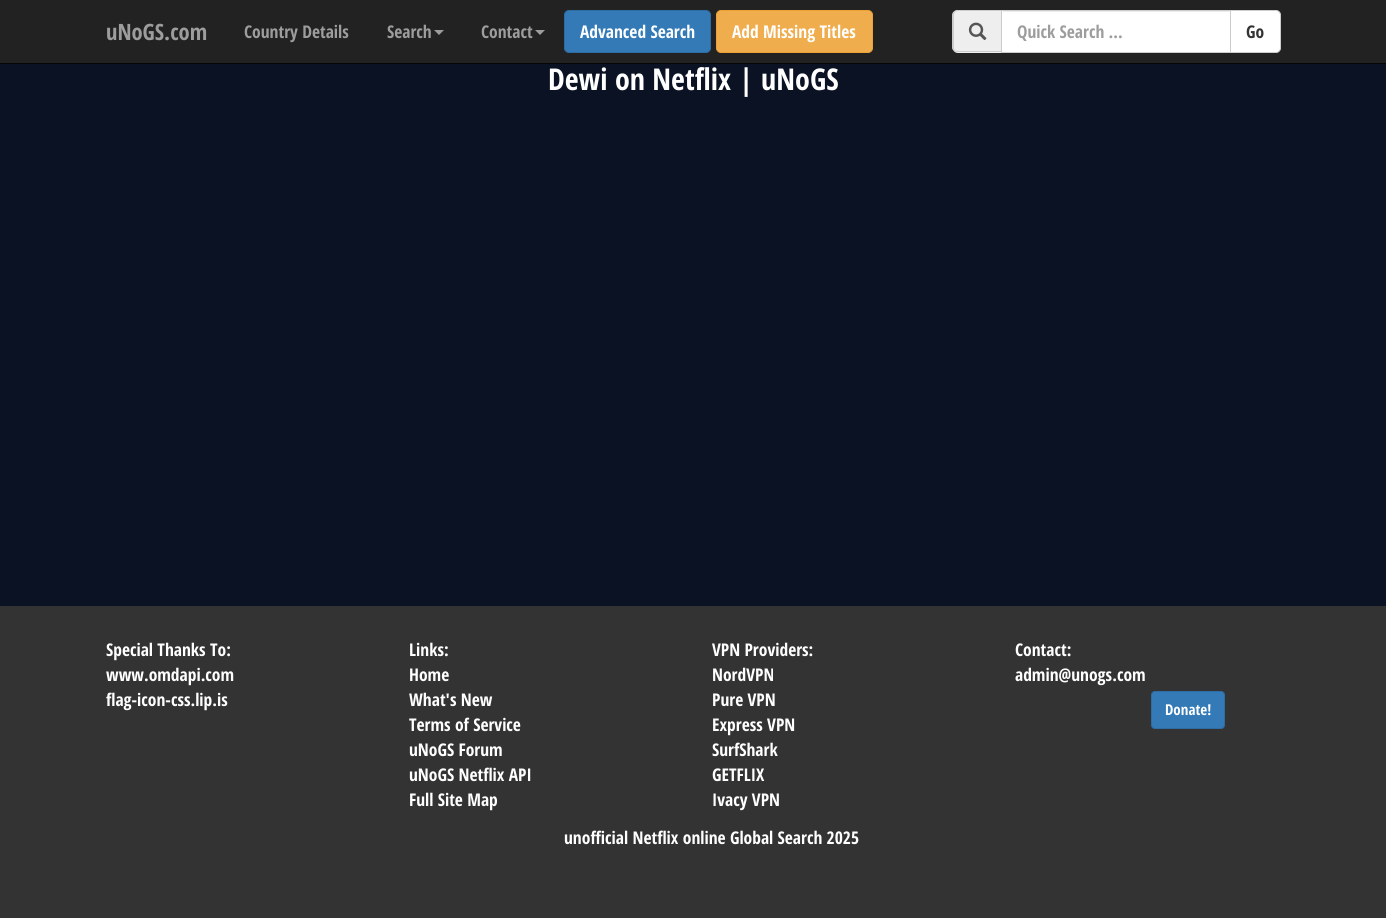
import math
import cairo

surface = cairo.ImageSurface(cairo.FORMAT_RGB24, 1386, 918)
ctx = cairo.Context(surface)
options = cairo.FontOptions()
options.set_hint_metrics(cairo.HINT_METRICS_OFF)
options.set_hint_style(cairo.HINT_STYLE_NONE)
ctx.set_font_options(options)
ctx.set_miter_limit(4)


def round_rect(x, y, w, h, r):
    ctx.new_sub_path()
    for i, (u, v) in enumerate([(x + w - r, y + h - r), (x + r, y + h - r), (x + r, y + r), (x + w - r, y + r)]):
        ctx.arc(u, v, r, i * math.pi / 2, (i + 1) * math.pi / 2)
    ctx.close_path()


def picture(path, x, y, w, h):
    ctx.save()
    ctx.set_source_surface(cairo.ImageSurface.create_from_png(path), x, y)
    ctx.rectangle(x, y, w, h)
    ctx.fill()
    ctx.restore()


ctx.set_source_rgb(0.043, 0.071, 0.141)
ctx.paint()
ctx.set_source_rgb(0.133, 0.133, 0.133)
ctx.rectangle(0, 0, 1386, 63)
ctx.fill()
ctx.set_source_rgb(0.031, 0.031, 0.031)
ctx.rectangle(0, 63, 1386, 1)
ctx.fill()
ctx.select_font_face("Open Sans Condensed", cairo.FONT_SLANT_NORMAL, cairo.FONT_WEIGHT_BOLD)
ctx.set_font_size(22.5)
ctx.set_source_rgb(0.616, 0.616, 0.616)
ctx.move_to(106, 40)
ctx.show_text("uNoGS.com")
ctx.set_font_size(17.5)
ctx.move_to(244, 38)
ctx.show_text("Country Details")
ctx.move_to(387, 38)
ctx.show_text("Search")
ctx.new_path()
ctx.move_to(434, 30)
ctx.line_to(444, 30)
ctx.line_to(439, 35)
ctx.close_path()
ctx.fill()
ctx.move_to(481, 38)
ctx.show_text("Contact")
ctx.new_path()
ctx.move_to(535, 30)
ctx.line_to(545, 30)
ctx.line_to(540, 35)
ctx.close_path()
ctx.fill()
ctx.set_source_rgb(0.2, 0.478, 0.718)
round_rect(564.5, 10.5, 146, 42, 4.5)
ctx.fill_preserve()
ctx.set_source_rgb(0.18, 0.427, 0.643)
ctx.set_line_width(1)
ctx.stroke()
ctx.set_source_rgb(1, 1, 1)
ctx.move_to(580, 38)
ctx.show_text("Advanced Search")
ctx.set_source_rgb(0.941, 0.678, 0.306)
round_rect(716.5, 10.5, 156, 42, 4.5)
ctx.fill_preserve()
ctx.set_source_rgb(0.933, 0.635, 0.212)
ctx.stroke()
ctx.set_source_rgb(1, 1, 1)
ctx.move_to(732, 38)
ctx.show_text("Add Missing Titles")
ctx.set_source_rgb(0.933, 0.933, 0.933)
ctx.new_path()
ctx.move_to(958, 10)
ctx.line_to(1001, 10)
ctx.line_to(1001, 53)
ctx.line_to(958, 53)
ctx.curve_to(955, 53, 953, 51, 953, 48)
ctx.line_to(953, 15)
ctx.curve_to(953, 12, 955, 10, 958, 10)
ctx.close_path()
ctx.fill()
ctx.set_source_rgb(0.8, 0.8, 0.8)
ctx.set_fill_rule(cairo.FILL_RULE_EVEN_ODD)
ctx.new_path()
ctx.move_to(958, 10)
ctx.line_to(1001, 10)
ctx.line_to(1001, 52)
ctx.line_to(958, 52)
ctx.curve_to(955, 52, 952, 50, 952, 48)
ctx.line_to(952, 15)
ctx.curve_to(952, 12, 955, 10, 958, 10)
ctx.close_path()
ctx.move_to(958, 11)
ctx.line_to(1001, 11)
ctx.line_to(1001, 51)
ctx.line_to(958, 51)
ctx.curve_to(955, 51, 954, 50, 954, 48)
ctx.line_to(954, 15)
ctx.curve_to(954, 13, 955, 11, 958, 11)
ctx.close_path()
ctx.fill()
picture("img1.png", 968, 22, 19, 19)
ctx.set_source_rgb(1, 1, 1)
ctx.rectangle(1002, 11, 228, 41)
ctx.fill()
ctx.set_source_rgb(0.925, 0.925, 0.925)
ctx.rectangle(1003, 11, 227, 1)
ctx.fill()
ctx.rectangle(1001.5, 10.5, 229, 42)
ctx.set_source_rgb(0.8, 0.8, 0.8)
ctx.stroke()
ctx.set_source_rgb(0.616, 0.616, 0.616)
ctx.move_to(1017, 38)
ctx.show_text("Quick Search ...")
ctx.set_source_rgb(1, 1, 1)
ctx.new_path()
ctx.move_to(1230.5, 10.5)
ctx.line_to(1276, 10.5)
ctx.curve_to(1278.5, 10.5, 1280.5, 12.5, 1280.5, 15)
ctx.line_to(1280.5, 48)
ctx.curve_to(1280.5, 50.5, 1278.5, 52.5, 1276, 52.5)
ctx.line_to(1230.5, 52.5)
ctx.close_path()
ctx.fill_preserve()
ctx.set_source_rgb(0.8, 0.8, 0.8)
ctx.stroke()
ctx.set_source_rgb(0.2, 0.2, 0.2)
ctx.move_to(1246, 38)
ctx.show_text("Go")
ctx.set_font_size(30)
ctx.set_source_rgb(1, 1, 1)
ctx.move_to(548, 90)
ctx.show_text("Dewi on Netflix | uNoGS")
ctx.set_source_rgb(0.2, 0.2, 0.2)
ctx.rectangle(0, 606, 1386, 312)
ctx.fill()
ctx.set_font_size(17.5)
ctx.set_source_rgb(1, 1, 1)
ctx.move_to(106, 656)
ctx.show_text("Special Thanks To:")
ctx.move_to(106, 681)
ctx.show_text("www.omdapi.com")
ctx.move_to(106, 706)
ctx.show_text("flag-icon-css.lip.is")
ctx.move_to(409, 656)
ctx.show_text("Links:")
ctx.move_to(409, 681)
ctx.show_text("Home")
ctx.move_to(409, 706)
ctx.show_text("What's New")
ctx.move_to(409, 731)
ctx.show_text("Terms of Service")
ctx.move_to(409, 756)
ctx.show_text("uNoGS Forum")
ctx.move_to(409, 781)
ctx.show_text("uNoGS Netflix API")
ctx.move_to(409, 806)
ctx.show_text("Full Site Map")
ctx.move_to(712, 656)
ctx.show_text("VPN Providers:")
ctx.move_to(712, 681)
ctx.show_text("NordVPN")
ctx.move_to(712, 706)
ctx.show_text("Pure VPN")
ctx.move_to(712, 731)
ctx.show_text("Express VPN")
ctx.move_to(712, 756)
ctx.show_text("SurfShark")
ctx.move_to(712, 781)
ctx.show_text("GETFLIX")
ctx.move_to(712, 806)
ctx.show_text("Ivacy VPN")
ctx.move_to(1015, 656)
ctx.show_text("Contact:")
ctx.move_to(1015, 681)
ctx.show_text("admin@unogs.com")
ctx.set_source_rgb(0.2, 0.478, 0.718)
round_rect(1151.5, 691.5, 73, 37, 3.5)
ctx.fill_preserve()
ctx.set_source_rgb(0.18, 0.427, 0.643)
ctx.stroke()
ctx.set_font_size(15)
ctx.set_source_rgb(1, 1, 1)
ctx.move_to(1165, 715)
ctx.show_text("Donate!")
ctx.set_font_size(17.5)
ctx.move_to(564, 844)
ctx.show_text("unofficial Netflix online Global Search 2025")
surface.write_to_png("page.png")
